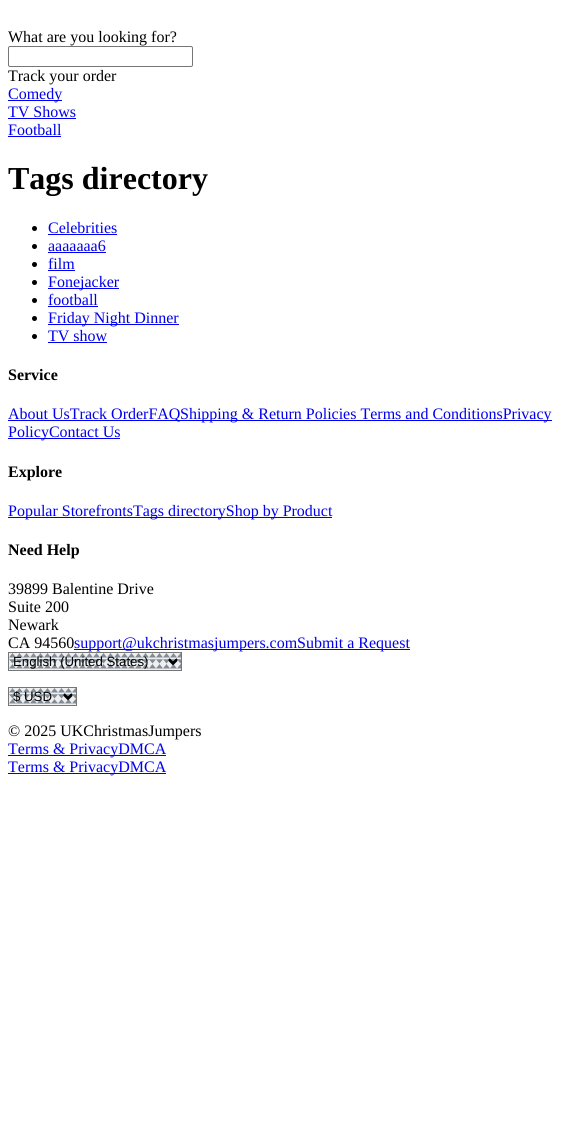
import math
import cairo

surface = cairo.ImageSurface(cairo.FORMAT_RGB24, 562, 1125)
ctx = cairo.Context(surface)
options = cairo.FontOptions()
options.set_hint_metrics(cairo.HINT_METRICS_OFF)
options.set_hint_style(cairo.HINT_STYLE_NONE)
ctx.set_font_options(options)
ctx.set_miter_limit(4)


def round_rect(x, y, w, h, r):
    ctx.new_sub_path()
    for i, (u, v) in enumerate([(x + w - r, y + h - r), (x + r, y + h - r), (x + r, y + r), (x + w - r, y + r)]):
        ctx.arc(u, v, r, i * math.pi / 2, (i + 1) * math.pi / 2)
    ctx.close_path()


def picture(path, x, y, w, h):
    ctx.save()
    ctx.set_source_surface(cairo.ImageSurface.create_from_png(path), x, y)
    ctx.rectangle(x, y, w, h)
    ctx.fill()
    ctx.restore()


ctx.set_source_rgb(1, 1, 1)
ctx.paint()
ctx.select_font_face("Liberation Serif")
ctx.set_font_size(16)
ctx.set_source_rgb(0, 0, 0)
ctx.move_to(8, 42)
ctx.show_text("What are you looking for?")
round_rect(8.5, 46.5, 184, 20, 1.5)
ctx.set_source_rgb(0.463, 0.463, 0.463)
ctx.set_line_width(1)
ctx.stroke()
ctx.set_source_rgb(0, 0, 0)
ctx.move_to(8, 81)
ctx.show_text("Track your order")
ctx.set_source_rgb(0, 0, 0.933)
ctx.rectangle(8, 100, 54, 1)
ctx.fill()
ctx.move_to(8, 99)
ctx.show_text("Comedy")
ctx.move_to(8, 117)
ctx.show_text("TV Shows")
ctx.rectangle(8, 118, 68, 1)
ctx.fill()
ctx.move_to(8, 135)
ctx.show_text("Football")
ctx.rectangle(8, 136, 53, 1)
ctx.fill()
ctx.select_font_face("Liberation Serif", cairo.FONT_SLANT_NORMAL, cairo.FONT_WEIGHT_BOLD)
ctx.set_font_size(32)
ctx.set_source_rgb(0, 0, 0)
ctx.move_to(8, 189)
ctx.show_text("Tags directory")
ctx.new_path()
ctx.arc(34.5, 228.5, 2.5, 0, 2 * math.pi)
ctx.fill()
ctx.select_font_face("Liberation Serif")
ctx.set_font_size(16)
ctx.set_source_rgb(0, 0, 0.933)
ctx.move_to(48, 233)
ctx.show_text("Celebrities")
ctx.rectangle(48, 234, 69, 1)
ctx.fill()
ctx.set_source_rgb(0, 0, 0)
ctx.arc(34.5, 246.5, 2.5, 0, 2 * math.pi)
ctx.fill()
ctx.set_source_rgb(0, 0, 0.933)
ctx.move_to(48, 251)
ctx.show_text("aaaaaaa6")
ctx.rectangle(48, 252, 58, 1)
ctx.fill()
ctx.set_source_rgb(0, 0, 0)
ctx.arc(34.5, 264.5, 2.5, 0, 2 * math.pi)
ctx.fill()
ctx.set_source_rgb(0, 0, 0.933)
ctx.move_to(48, 269)
ctx.show_text("film")
ctx.rectangle(48, 270, 27, 1)
ctx.fill()
ctx.set_source_rgb(0, 0, 0)
ctx.arc(34.5, 282.5, 2.5, 0, 2 * math.pi)
ctx.fill()
ctx.set_source_rgb(0, 0, 0.933)
ctx.rectangle(48, 288, 71, 1)
ctx.fill()
ctx.move_to(48, 287)
ctx.show_text("Fonejacker")
ctx.set_source_rgb(0, 0, 0)
ctx.new_path()
ctx.arc(34.5, 300.5, 2.5, 0, 2 * math.pi)
ctx.fill()
ctx.set_source_rgb(0, 0, 0.933)
ctx.move_to(48, 305)
ctx.show_text("football")
ctx.rectangle(48, 306, 50, 1)
ctx.fill()
ctx.set_source_rgb(0, 0, 0)
ctx.arc(34.5, 318.5, 2.5, 0, 2 * math.pi)
ctx.fill()
ctx.set_source_rgb(0, 0, 0.933)
ctx.rectangle(48, 324, 131, 1)
ctx.fill()
ctx.move_to(48, 323)
ctx.show_text("Friday Night Dinner")
ctx.set_source_rgb(0, 0, 0)
ctx.new_path()
ctx.arc(34.5, 336.5, 2.5, 0, 2 * math.pi)
ctx.fill()
ctx.set_source_rgb(0, 0, 0.933)
ctx.move_to(48, 341)
ctx.show_text("TV show")
ctx.rectangle(48, 342, 59, 1)
ctx.fill()
ctx.select_font_face("Liberation Serif", cairo.FONT_SLANT_NORMAL, cairo.FONT_WEIGHT_BOLD)
ctx.set_source_rgb(0, 0, 0)
ctx.move_to(8, 380)
ctx.show_text("Service")
ctx.set_source_rgb(0, 0, 0.933)
ctx.rectangle(8, 420, 172, 1)
ctx.fill()
ctx.select_font_face("Liberation Serif")
ctx.move_to(8, 419)
ctx.show_text("About UsTrack OrderFAQ")
ctx.rectangle(180, 420, 372, 1)
ctx.fill()
ctx.move_to(180, 419)
ctx.show_text("Shipping & Return Policies Terms and ConditionsPrivacy")
ctx.rectangle(8, 438, 112, 1)
ctx.fill()
ctx.move_to(8, 437)
ctx.show_text("PolicyContact Us")
ctx.select_font_face("Liberation Serif", cairo.FONT_SLANT_NORMAL, cairo.FONT_WEIGHT_BOLD)
ctx.set_source_rgb(0, 0, 0)
ctx.move_to(8, 477)
ctx.show_text("Explore")
ctx.set_source_rgb(0, 0, 0.933)
ctx.rectangle(8, 517, 324, 1)
ctx.fill()
ctx.select_font_face("Liberation Serif")
ctx.move_to(8, 516)
ctx.show_text("Popular StorefrontsTags directoryShop by Product")
ctx.select_font_face("Liberation Serif", cairo.FONT_SLANT_NORMAL, cairo.FONT_WEIGHT_BOLD)
ctx.set_source_rgb(0, 0, 0)
ctx.move_to(8, 555)
ctx.show_text("Need Help")
ctx.select_font_face("Liberation Serif")
ctx.move_to(8, 594)
ctx.show_text("39899 Balentine Drive")
ctx.move_to(8, 612)
ctx.show_text("Suite 200")
ctx.move_to(8, 630)
ctx.show_text("Newark")
ctx.move_to(8, 648)
ctx.show_text("CA 94560")
ctx.set_source_rgb(0, 0, 0.933)
ctx.rectangle(74, 649, 223, 1)
ctx.fill()
ctx.move_to(74, 648)
ctx.show_text("support@ukchristmasjumpers.com")
ctx.rectangle(297, 649, 113, 1)
ctx.fill()
ctx.move_to(297, 648)
ctx.show_text("Submit a Request")
ctx.set_source_rgb(0.937, 0.937, 0.937)
ctx.rectangle(9, 653, 172, 17)
ctx.fill()
picture("img1.png", 9, 653, 172, 16)
ctx.rectangle(8.5, 652.5, 173, 18)
ctx.set_source_rgb(0.463, 0.463, 0.463)
ctx.stroke()
ctx.new_path()
ctx.move_to(169, 660)
ctx.line_to(173, 664)
ctx.line_to(177, 660)
ctx.set_source_rgb(0, 0, 0)
ctx.set_line_width(2)
ctx.stroke()
ctx.select_font_face("Liberation Sans")
ctx.set_font_size(13.25)
ctx.move_to(13, 666)
ctx.show_text("English (United States)")
ctx.set_source_rgb(0.937, 0.937, 0.937)
ctx.rectangle(9, 688, 67, 17)
ctx.fill()
picture("img2.png", 9, 688, 67, 16)
ctx.rectangle(8.5, 687.5, 68, 18)
ctx.set_source_rgb(0.463, 0.463, 0.463)
ctx.set_line_width(1)
ctx.stroke()
ctx.new_path()
ctx.move_to(64, 695)
ctx.line_to(68, 699)
ctx.line_to(72, 695)
ctx.set_source_rgb(0, 0, 0)
ctx.set_line_width(2)
ctx.stroke()
ctx.move_to(13, 701)
ctx.show_text("$ USD")
ctx.select_font_face("Liberation Serif")
ctx.set_font_size(16)
ctx.move_to(8, 736)
ctx.show_text("© 2025 UKChristmasJumpers")
ctx.set_source_rgb(0, 0, 0.933)
ctx.rectangle(8, 755, 110, 1)
ctx.fill()
ctx.move_to(8, 754)
ctx.show_text("Terms & PrivacyDMCA")
ctx.rectangle(118, 755, 48, 1)
ctx.fill()
ctx.rectangle(8, 773, 110, 1)
ctx.fill()
ctx.move_to(8, 772)
ctx.show_text("Terms & PrivacyDMCA")
ctx.rectangle(118, 773, 48, 1)
ctx.fill()
surface.write_to_png("page.png")
